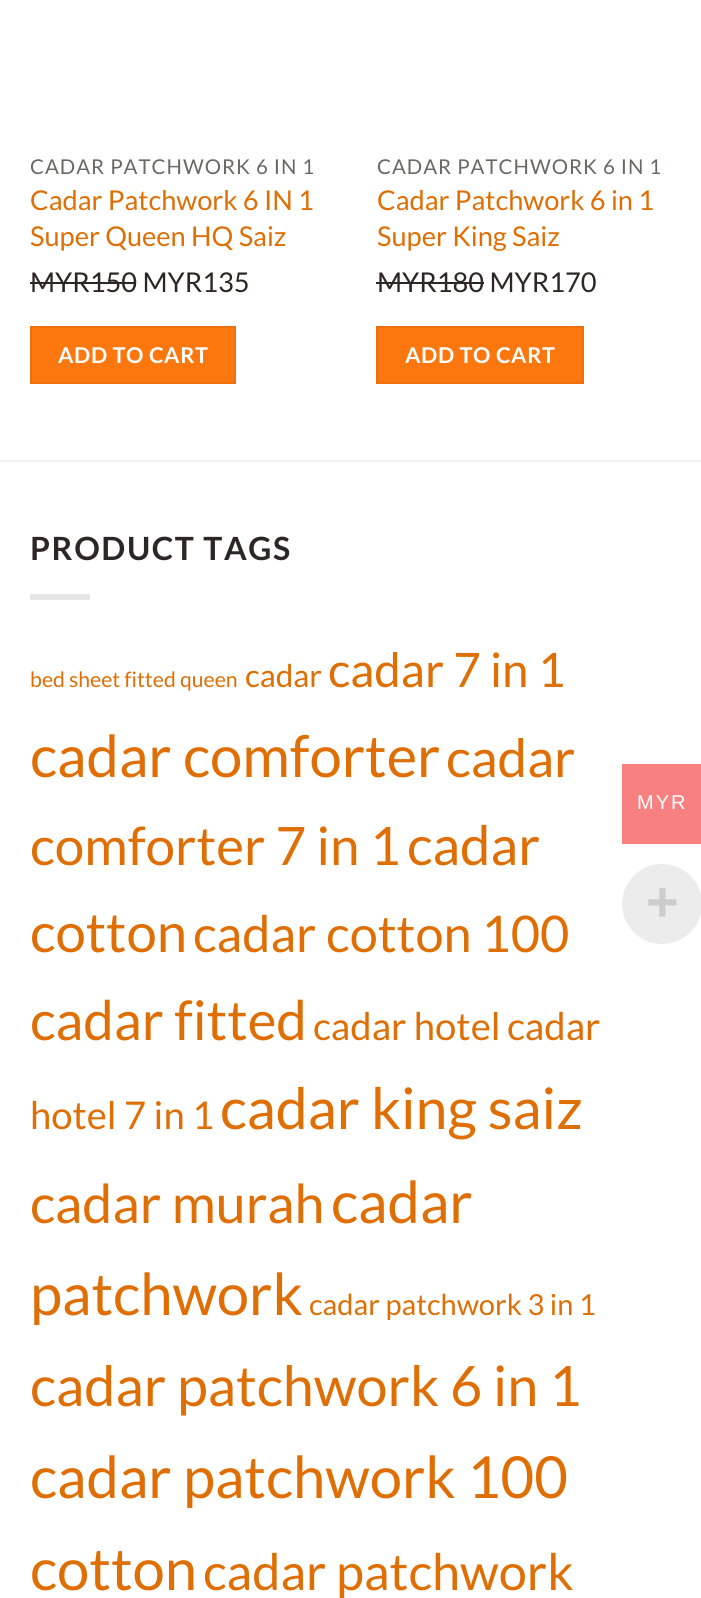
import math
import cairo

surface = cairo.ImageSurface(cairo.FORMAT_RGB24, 701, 1598)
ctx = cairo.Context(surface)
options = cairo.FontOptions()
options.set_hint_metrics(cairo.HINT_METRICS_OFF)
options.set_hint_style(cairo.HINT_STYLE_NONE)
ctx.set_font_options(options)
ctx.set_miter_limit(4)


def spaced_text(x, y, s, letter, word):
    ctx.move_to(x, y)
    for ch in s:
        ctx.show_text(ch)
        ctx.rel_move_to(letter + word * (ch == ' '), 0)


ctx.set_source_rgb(1, 1, 1)
ctx.paint()
ctx.select_font_face("Lato")
ctx.set_font_size(20.4)
ctx.set_source_rgb(0.427, 0.4, 0.4)
spaced_text(30, 174, "CADAR PATCHWORK 6 IN 1", 1, 0)
ctx.set_font_size(27.25)
ctx.set_source_rgb(0.875, 0.435, 0.02)
ctx.move_to(30, 210)
ctx.show_text("Cadar Patchwork 6 IN 1")
ctx.move_to(30, 246)
ctx.show_text("Super Queen HQ Saiz")
ctx.set_source_rgb(0.18, 0.145, 0.145)
ctx.move_to(30, 292)
ctx.show_text("MYR150 MYR135")
ctx.rectangle(30, 282, 106, 2)
ctx.fill()
ctx.set_source_rgb(0.988, 0.467, 0.055)
ctx.rectangle(31, 327, 204, 56)
ctx.fill_preserve()
ctx.set_source_rgb(0.937, 0.443, 0.051)
ctx.stroke()
ctx.select_font_face("Lato", cairo.FONT_SLANT_NORMAL, cairo.FONT_WEIGHT_BOLD)
ctx.set_font_size(21.75)
ctx.set_source_rgb(1, 1, 1)
spaced_text(58, 363, "ADD TO CART", 0.6, 0)
ctx.select_font_face("Lato")
ctx.set_font_size(20.4)
ctx.set_source_rgb(0.427, 0.4, 0.4)
spaced_text(377, 174, "CADAR PATCHWORK 6 IN 1", 1, 0)
ctx.set_font_size(27.25)
ctx.set_source_rgb(0.875, 0.435, 0.02)
ctx.move_to(377, 210)
ctx.show_text("Cadar Patchwork 6 in 1")
ctx.move_to(377, 246)
ctx.show_text("Super King Saiz")
ctx.set_source_rgb(0.18, 0.145, 0.145)
ctx.move_to(377, 292)
ctx.show_text("MYR180 MYR170")
ctx.rectangle(376, 282, 108, 2)
ctx.fill()
ctx.set_source_rgb(0.988, 0.467, 0.055)
ctx.rectangle(377, 327, 206, 56)
ctx.fill_preserve()
ctx.set_source_rgb(0.937, 0.443, 0.051)
ctx.stroke()
ctx.select_font_face("Lato", cairo.FONT_SLANT_NORMAL, cairo.FONT_WEIGHT_BOLD)
ctx.set_font_size(21.75)
ctx.set_source_rgb(1, 1, 1)
spaced_text(405, 363, "ADD TO CART", 0.6, 0)
ctx.set_source_rgb(0.949, 0.949, 0.949)
ctx.rectangle(0, 460, 701, 2)
ctx.fill()
ctx.set_font_size(32)
ctx.set_source_rgb(0.18, 0.145, 0.145)
spaced_text(30, 560, "PRODUCT TAGS", 1.6, 0)
ctx.set_source_rgb(0.902, 0.902, 0.902)
ctx.rectangle(30, 594, 60, 6)
ctx.fill()
ctx.select_font_face("Lato")
ctx.set_font_size(21.25)
ctx.set_source_rgb(0.875, 0.435, 0.02)
ctx.move_to(30, 687)
ctx.show_text("bed sheet fitted queen")
ctx.set_font_size(31.5)
ctx.move_to(245, 687)
ctx.show_text("cadar")
ctx.set_font_size(47.5)
ctx.move_to(328, 687)
ctx.show_text("cadar 7 in 1")
ctx.set_font_size(58)
ctx.move_to(30, 777)
ctx.show_text("cadar comforter")
ctx.set_font_size(53)
ctx.move_to(446, 777)
ctx.show_text("cadar")
ctx.move_to(30, 865)
ctx.show_text("comforter 7 in 1")
ctx.set_font_size(54.5)
ctx.move_to(407, 865)
ctx.show_text("cadar")
ctx.move_to(30, 952)
ctx.show_text("cotton")
ctx.set_font_size(50.5)
ctx.move_to(193, 952)
ctx.show_text("cadar cotton 100")
ctx.set_font_size(54.75)
ctx.move_to(30, 1040)
ctx.show_text("cadar fitted")
ctx.set_font_size(38.25)
ctx.move_to(313, 1040)
ctx.show_text("cadar hotel")
ctx.move_to(507, 1040)
ctx.show_text("cadar")
ctx.move_to(30, 1129)
ctx.show_text("hotel 7 in 1")
ctx.set_font_size(57.25)
ctx.move_to(220, 1129)
ctx.show_text("cadar king saiz")
ctx.set_font_size(53.75)
ctx.move_to(30, 1223)
ctx.show_text("cadar murah")
ctx.set_font_size(58)
ctx.move_to(331, 1223)
ctx.show_text("cadar")
ctx.move_to(30, 1315)
ctx.show_text("patchwork")
ctx.set_font_size(29)
ctx.move_to(309, 1315)
ctx.show_text("cadar patchwork 3 in 1")
ctx.set_font_size(55.75)
ctx.move_to(30, 1406)
ctx.show_text("cadar patchwork 6 in 1")
ctx.set_font_size(58)
ctx.move_to(30, 1498)
ctx.show_text("cadar patchwork 100")
ctx.move_to(30, 1590)
ctx.show_text("cotton")
ctx.set_font_size(50.5)
ctx.move_to(203, 1590)
ctx.show_text("cadar patchwork")
ctx.set_source_rgb(0.969, 0.502, 0.502)
ctx.rectangle(622, 764, 79, 80)
ctx.fill()
ctx.select_font_face("Liberation Sans")
ctx.set_font_size(20)
ctx.set_source_rgb(1, 1, 1)
spaced_text(637, 809, "MYR", 2, 0)
ctx.set_source_rgb(0.922, 0.922, 0.922)
ctx.new_path()
ctx.arc(662, 904, 40, 0, 2 * math.pi)
ctx.fill()
ctx.select_font_face("Liberation Sans", cairo.FONT_SLANT_NORMAL, cairo.FONT_WEIGHT_BOLD)
ctx.set_font_size(56)
ctx.set_source_rgb(0.8, 0.8, 0.8)
ctx.move_to(646, 921)
ctx.show_text("+")
surface.write_to_png("page.png")
